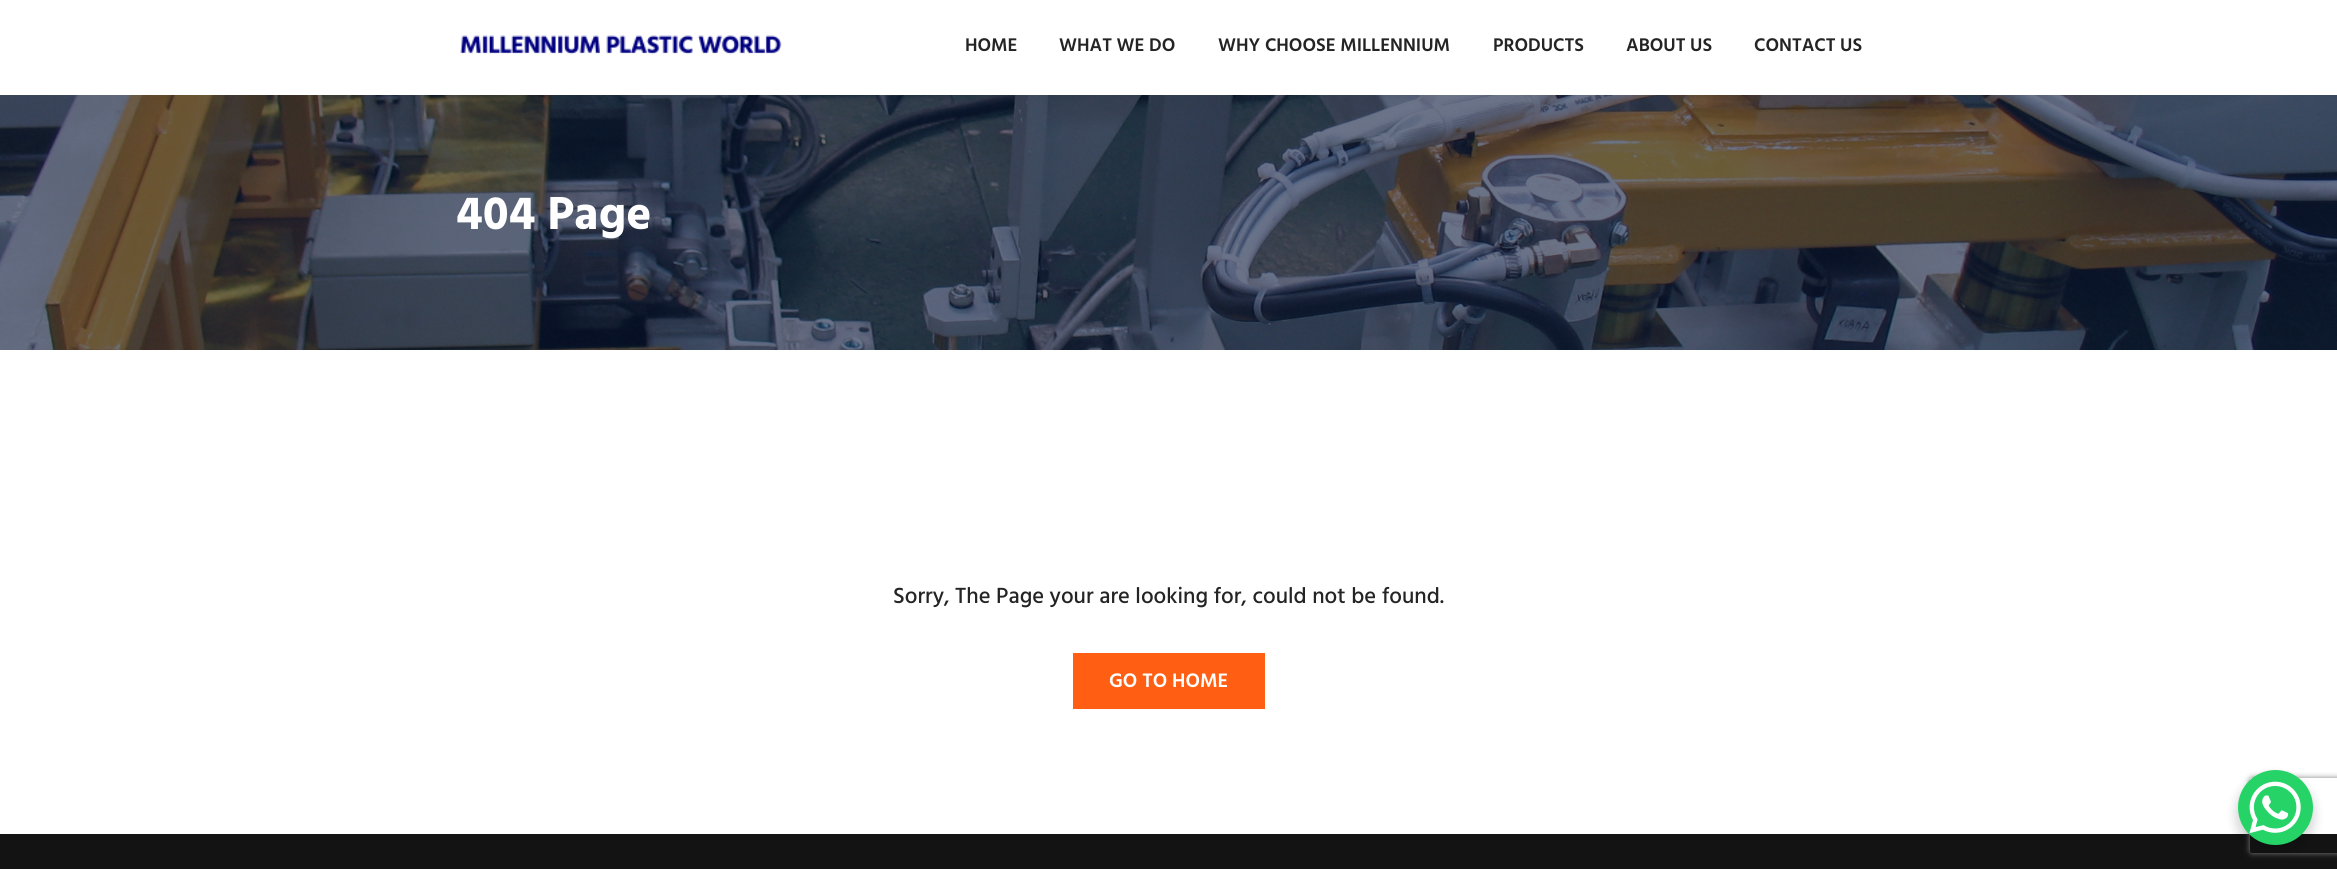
import math
import cairo

surface = cairo.ImageSurface(cairo.FORMAT_RGB24, 2337, 869)
ctx = cairo.Context(surface)
options = cairo.FontOptions()
options.set_hint_metrics(cairo.HINT_METRICS_OFF)
options.set_hint_style(cairo.HINT_STYLE_NONE)
ctx.set_font_options(options)
ctx.set_miter_limit(4)


def round_rect(x, y, w, h, r):
    ctx.new_sub_path()
    for i, (u, v) in enumerate([(x + w - r, y + h - r), (x + r, y + h - r), (x + r, y + r), (x + w - r, y + r)]):
        ctx.arc(u, v, r, i * math.pi / 2, (i + 1) * math.pi / 2)
    ctx.close_path()


def shadow(x, y, w, h, r, blur, alpha):
    ctx.push_group_with_content(cairo.CONTENT_ALPHA)
    ctx.set_operator(cairo.OPERATOR_SOURCE)
    for i in range(15, -16, -2):
        e = blur * i / 6
        if min(w, h) + 2 * e > 0:
            ctx.set_source_rgba(0, 0, 0, alpha * math.erfc((i - 1) / 8.5) / 2)
            round_rect(x - e, y - e, w + 2 * e, h + 2 * e, max(0, min(r + e + blur * .6, min(w, h) / 2 + e)))
            ctx.fill()
    ctx.mask(ctx.pop_group())


def picture(path, x, y, w, h):
    ctx.save()
    ctx.set_source_surface(cairo.ImageSurface.create_from_png(path), x, y)
    ctx.rectangle(x, y, w, h)
    ctx.fill()
    ctx.restore()


ctx.set_source_rgb(1, 1, 1)
ctx.paint()
picture("img1.png", 460, 35, 322, 20)
ctx.select_font_face("Hind SemiBold")
ctx.set_font_size(18.75)
ctx.set_source_rgb(0.141, 0.141, 0.141)
ctx.move_to(965, 51)
ctx.show_text("HOME")
ctx.move_to(1059, 51)
ctx.show_text("WHAT WE DO")
ctx.move_to(1218, 51)
ctx.show_text("WHY CHOOSE MILLENNIUM")
ctx.move_to(1493, 51)
ctx.show_text("PRODUCTS")
ctx.move_to(1626, 51)
ctx.show_text("ABOUT US")
ctx.move_to(1754, 51)
ctx.show_text("CONTACT US")
picture("img2.png", 0, 95, 2337, 255)
ctx.select_font_face("Hind", cairo.FONT_SLANT_NORMAL, cairo.FONT_WEIGHT_BOLD)
ctx.set_font_size(47.5)
ctx.set_source_rgb(1, 1, 1)
ctx.move_to(456, 229)
ctx.show_text("404 Page")
ctx.select_font_face("Hind Medium")
ctx.set_font_size(22.5)
ctx.set_source_rgb(0.141, 0.141, 0.141)
ctx.move_to(893, 603)
ctx.show_text("Sorry, The Page your are looking for, could not be found.")
ctx.set_source_rgb(1, 0.369, 0.078)
ctx.rectangle(1073, 653, 192, 56)
ctx.fill()
ctx.select_font_face("Hind SemiBold")
ctx.set_font_size(20)
ctx.set_source_rgb(1, 1, 1)
ctx.move_to(1109, 687)
ctx.show_text("GO TO HOME")
ctx.set_source_rgb(0.078, 0.078, 0.078)
ctx.rectangle(0, 834, 2337, 35)
ctx.fill()
ctx.set_source_rgb(0, 0, 0)
shadow(2235, 775, 80, 80, 40, 5, 0.15)
ctx.save()
ctx.set_fill_rule(cairo.FILL_RULE_EVEN_ODD)
ctx.new_path()
ctx.move_to(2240, 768)
ctx.line_to(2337, 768)
ctx.line_to(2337, 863)
ctx.line_to(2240, 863)
ctx.close_path()
ctx.move_to(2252.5, 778)
ctx.line_to(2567.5, 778)
ctx.curve_to(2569, 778, 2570, 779, 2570, 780.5)
ctx.line_to(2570, 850.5)
ctx.curve_to(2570, 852, 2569, 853, 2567.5, 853)
ctx.line_to(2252.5, 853)
ctx.curve_to(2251, 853, 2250, 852, 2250, 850.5)
ctx.line_to(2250, 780.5)
ctx.curve_to(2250, 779, 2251, 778, 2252.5, 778)
ctx.close_path()
ctx.clip()
ctx.set_source_rgb(0.502, 0.502, 0.502)
shadow(2250, 778, 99, 75, 2.5, 3, 1)
ctx.restore()
ctx.set_source_rgb(0.145, 0.827, 0.4)
ctx.arc(2275.5, 807.5, 37.5, 0, 2 * math.pi)
ctx.fill()
picture("img3.png", 2249, 781, 52, 53)
surface.write_to_png("page.png")
